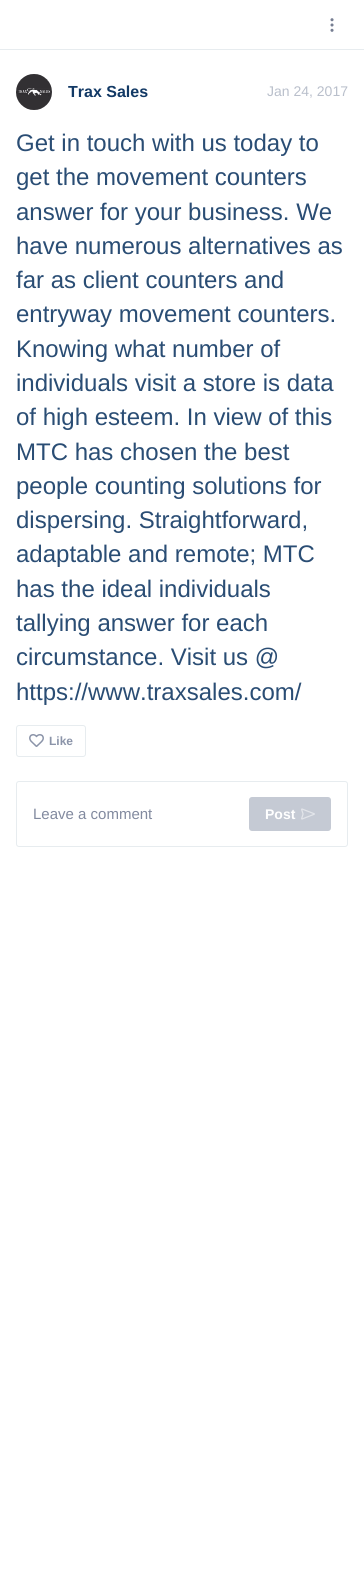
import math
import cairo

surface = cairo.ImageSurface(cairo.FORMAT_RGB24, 364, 1577)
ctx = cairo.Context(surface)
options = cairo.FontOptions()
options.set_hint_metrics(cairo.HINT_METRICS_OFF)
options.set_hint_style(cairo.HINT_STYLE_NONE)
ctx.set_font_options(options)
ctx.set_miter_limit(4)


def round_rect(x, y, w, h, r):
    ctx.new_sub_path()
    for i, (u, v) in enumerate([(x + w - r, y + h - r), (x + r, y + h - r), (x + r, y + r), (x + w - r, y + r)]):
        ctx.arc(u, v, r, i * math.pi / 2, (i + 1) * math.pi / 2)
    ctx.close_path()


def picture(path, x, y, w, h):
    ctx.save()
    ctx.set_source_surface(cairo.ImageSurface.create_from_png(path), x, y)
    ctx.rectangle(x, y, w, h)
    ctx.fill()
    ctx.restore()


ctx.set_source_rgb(1, 1, 1)
ctx.paint()
ctx.set_source_rgb(0.906, 0.922, 0.937)
ctx.rectangle(0, 49, 364, 1)
ctx.fill()
picture("img1.png", 330, 18, 4, 14)
picture("img2.png", 16, 74, 36, 36)
ctx.select_font_face("Liberation Sans", cairo.FONT_SLANT_NORMAL, cairo.FONT_WEIGHT_BOLD)
ctx.set_font_size(16)
ctx.set_source_rgb(0.071, 0.224, 0.396)
ctx.move_to(68, 97)
ctx.show_text("Trax Sales")
ctx.select_font_face("Liberation Sans")
ctx.set_font_size(14)
ctx.set_source_rgb(0.725, 0.749, 0.796)
ctx.move_to(267, 96)
ctx.show_text("Jan 24, 2017")
ctx.set_font_size(24)
ctx.set_source_rgb(0.165, 0.302, 0.455)
ctx.move_to(16, 151)
ctx.show_text("Get in touch with us today to")
ctx.move_to(16, 185)
ctx.show_text("get the movement counters")
ctx.move_to(16, 220)
ctx.show_text("answer for your business. We")
ctx.move_to(16, 254)
ctx.show_text("have numerous alternatives as")
ctx.move_to(16, 288)
ctx.show_text("far as client counters and")
ctx.move_to(16, 322)
ctx.show_text("entryway movement counters.")
ctx.move_to(16, 357)
ctx.show_text("Knowing what number of")
ctx.move_to(16, 391)
ctx.show_text("individuals visit a store is data")
ctx.move_to(16, 425)
ctx.show_text("of high esteem. In view of this")
ctx.move_to(16, 460)
ctx.show_text("MTC has chosen the best")
ctx.move_to(16, 494)
ctx.show_text("people counting solutions for")
ctx.move_to(16, 528)
ctx.show_text("dispersing. Straightforward,")
ctx.move_to(16, 562)
ctx.show_text("adaptable and remote; MTC")
ctx.move_to(16, 597)
ctx.show_text("has the ideal individuals")
ctx.move_to(16, 631)
ctx.show_text("tallying answer for each")
ctx.move_to(16, 665)
ctx.show_text("circumstance. Visit us @")
ctx.move_to(16, 700)
ctx.show_text("https://www.traxsales.com/")
round_rect(16.5, 725.5, 69, 31, 2.5)
ctx.set_source_rgb(0.906, 0.922, 0.937)
ctx.set_line_width(1)
ctx.stroke()
picture("img3.png", 29, 734, 15, 13)
ctx.select_font_face("Liberation Sans", cairo.FONT_SLANT_NORMAL, cairo.FONT_WEIGHT_BOLD)
ctx.set_font_size(12)
ctx.set_source_rgb(0.545, 0.58, 0.663)
ctx.move_to(49, 745)
ctx.show_text("Like")
round_rect(16.5, 781.5, 331, 65, 2.5)
ctx.set_source_rgb(0.906, 0.922, 0.937)
ctx.stroke()
ctx.select_font_face("Liberation Sans")
ctx.set_font_size(15)
ctx.set_source_rgb(0.51, 0.541, 0.624)
ctx.move_to(33, 819)
ctx.show_text("Leave a comment")
ctx.set_source_rgb(0.773, 0.792, 0.831)
round_rect(249, 797, 82, 34, 3)
ctx.fill()
ctx.select_font_face("Liberation Sans", cairo.FONT_SLANT_NORMAL, cairo.FONT_WEIGHT_BOLD)
ctx.set_font_size(14)
ctx.set_source_rgb(1, 1, 1)
ctx.move_to(265, 819)
ctx.show_text("Post")
picture("img4.png", 301, 808, 14, 12)
surface.write_to_png("page.png")
